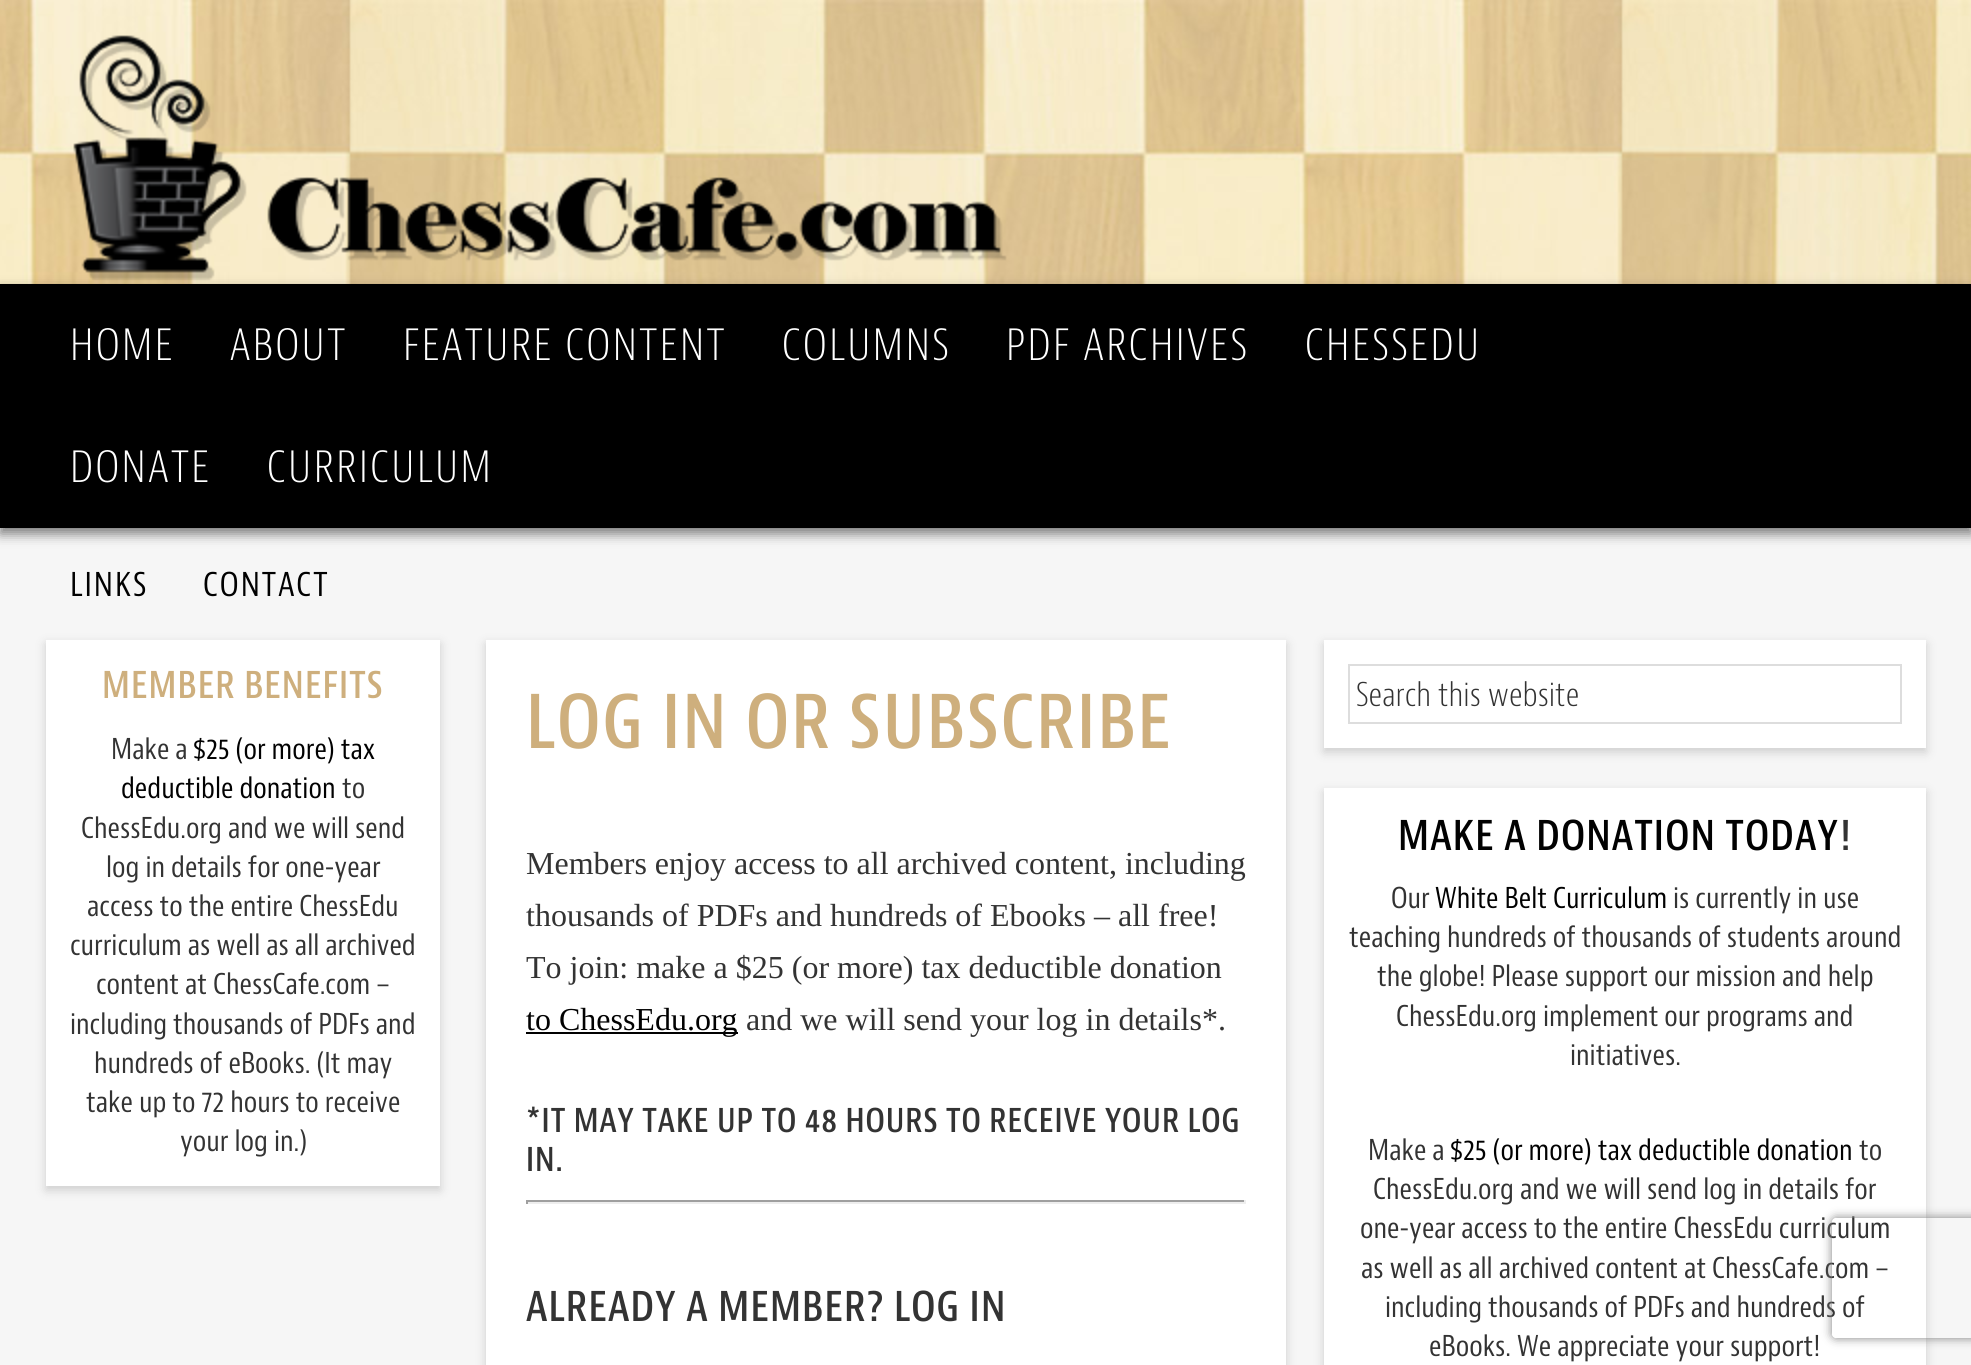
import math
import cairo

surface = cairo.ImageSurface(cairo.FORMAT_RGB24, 1971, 1365)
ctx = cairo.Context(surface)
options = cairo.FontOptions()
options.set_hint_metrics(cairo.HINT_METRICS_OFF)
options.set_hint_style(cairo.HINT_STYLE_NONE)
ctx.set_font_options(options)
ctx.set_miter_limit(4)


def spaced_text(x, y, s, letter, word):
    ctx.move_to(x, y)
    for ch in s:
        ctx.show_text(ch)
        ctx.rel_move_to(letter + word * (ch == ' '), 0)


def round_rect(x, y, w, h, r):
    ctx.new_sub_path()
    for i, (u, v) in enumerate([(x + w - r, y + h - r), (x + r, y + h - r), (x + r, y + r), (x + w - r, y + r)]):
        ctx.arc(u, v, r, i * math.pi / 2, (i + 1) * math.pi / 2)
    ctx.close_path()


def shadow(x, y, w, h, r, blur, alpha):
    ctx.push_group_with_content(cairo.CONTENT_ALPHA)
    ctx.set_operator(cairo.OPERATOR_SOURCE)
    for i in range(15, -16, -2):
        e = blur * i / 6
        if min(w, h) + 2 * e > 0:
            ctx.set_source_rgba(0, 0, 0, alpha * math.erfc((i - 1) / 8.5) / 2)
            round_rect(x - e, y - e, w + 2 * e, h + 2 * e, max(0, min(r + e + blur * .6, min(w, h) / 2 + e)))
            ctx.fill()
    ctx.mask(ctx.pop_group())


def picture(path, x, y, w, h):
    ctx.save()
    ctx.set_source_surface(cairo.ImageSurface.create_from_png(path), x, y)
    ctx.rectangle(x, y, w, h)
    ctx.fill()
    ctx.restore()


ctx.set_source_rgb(0.961, 0.961, 0.961)
ctx.paint()
picture("img1.png", 0, 0, 1971, 284)
ctx.set_source_rgb(0, 0, 0)
shadow(0, 290, 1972, 244, 0, 6, 0.5)
picture("img2.png", 73, 35, 934, 246)
ctx.set_source_rgb(0, 0, 0)
ctx.rectangle(0, 284, 1971, 244)
ctx.fill()
ctx.select_font_face("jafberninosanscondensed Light")
ctx.set_font_size(42)
ctx.set_source_rgb(1, 1, 1)
spaced_text(70, 360, "HOME", 2.5, 0)
spaced_text(230, 360, "ABOUT", 2.5, 0)
spaced_text(403, 360, "FEATURE CONTENT", 2.5, 0)
spaced_text(782, 360, "COLUMNS", 2.5, 0)
spaced_text(1006, 360, "PDF ARCHIVES", 2.5, 0)
spaced_text(1305, 360, "CHESSEDU", 2.5, 0)
spaced_text(70, 482, "DONATE", 2.5, 0)
spaced_text(267, 482, "CURRICULUM", 2.5, 0)
ctx.select_font_face("jafberninosanscondensed")
ctx.set_font_size(32)
ctx.set_source_rgb(0.004, 0.004, 0.004)
spaced_text(70, 596, "LINKS", 2, 0)
spaced_text(203, 596, "CONTACT", 2, 0)
ctx.set_source_rgb(0.804, 0.804, 0.804)
shadow(46, 644, 394, 546, 0, 5, 1)
ctx.set_source_rgb(1, 1, 1)
ctx.rectangle(46, 640, 394, 546)
ctx.fill()
ctx.select_font_face("jafberninosanscondensed SemiBold")
ctx.set_font_size(36)
ctx.set_source_rgb(0.808, 0.686, 0.49)
spaced_text(102, 698, "MEMBER BENEFITS", 1.1, 0)
ctx.select_font_face("jafberninosanscondensed")
ctx.set_font_size(28)
ctx.set_source_rgb(0.2, 0.2, 0.2)
ctx.move_to(111, 759)
ctx.show_text("Make a")
ctx.set_source_rgb(0.004, 0.004, 0.004)
ctx.move_to(193, 759)
ctx.show_text("$25 (or more) tax")
ctx.move_to(121, 798)
ctx.show_text("deductible donation")
ctx.set_source_rgb(0.2, 0.2, 0.2)
ctx.move_to(342, 798)
ctx.show_text("to")
ctx.move_to(81, 838)
ctx.show_text("ChessEdu.org and we will send")
ctx.move_to(106, 877)
ctx.show_text("log in details for one-year")
ctx.move_to(87, 916)
ctx.show_text("access to the entire ChessEdu")
ctx.move_to(70, 955)
ctx.show_text("curriculum as well as all archived")
ctx.move_to(96, 994)
ctx.show_text("content at ChessCafe.com –")
ctx.move_to(70, 1034)
ctx.show_text("including thousands of PDFs and")
ctx.move_to(94, 1073)
ctx.show_text("hundreds of eBooks. (It may")
ctx.move_to(86, 1112)
ctx.show_text("take up to 72 hours to receive")
ctx.move_to(180, 1151)
ctx.show_text("your log in.)")
ctx.set_source_rgb(0.804, 0.804, 0.804)
shadow(486, 644, 800, 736, 0, 5, 1)
ctx.set_source_rgb(1, 1, 1)
ctx.rectangle(486, 640, 800, 725)
ctx.fill()
ctx.select_font_face("jafberninosanscondensed SemiBold")
ctx.set_font_size(72)
ctx.set_source_rgb(0.808, 0.686, 0.49)
spaced_text(526, 748, "LOG IN OR SUBSCRIBE", 2.2, 0)
ctx.select_font_face("Liberation Serif")
ctx.set_font_size(32)
ctx.set_source_rgb(0.2, 0.2, 0.2)
ctx.move_to(526, 874)
ctx.show_text("Members enjoy access to all archived content, including")
ctx.move_to(526, 926)
ctx.show_text("thousands of PDFs and hundreds of Ebooks – all free!")
ctx.move_to(526, 978)
ctx.show_text("To join: make a $25 (or more) tax deductible donation")
ctx.set_source_rgb(0, 0, 0)
ctx.rectangle(526, 1032, 212, 2)
ctx.fill()
ctx.set_source_rgb(0.004, 0.004, 0.004)
ctx.move_to(526, 1030)
ctx.show_text("to ChessEdu.org")
ctx.set_source_rgb(0.2, 0.2, 0.2)
ctx.move_to(746, 1030)
ctx.show_text("and we will send your log in details*.")
ctx.select_font_face("jafberninosanscondensed SemiBold")
spaced_text(526, 1132, "*IT MAY TAKE UP TO 48 HOURS TO RECEIVE YOUR LOG", 0.95, 0)
spaced_text(526, 1171, "IN.", 0.95, 0)
ctx.set_source_rgb(0.624, 0.624, 0.624)
ctx.rectangle(526, 1200, 720, 2)
ctx.fill()
ctx.set_source_rgb(0.933, 0.933, 0.933)
ctx.rectangle(1244, 1200, 2, 4)
ctx.fill()
ctx.rectangle(526, 1202, 720, 2)
ctx.fill()
ctx.set_source_rgb(0.624, 0.624, 0.624)
ctx.rectangle(526, 1200, 2, 4)
ctx.fill()
ctx.set_font_size(40)
ctx.set_source_rgb(0.2, 0.2, 0.2)
spaced_text(526, 1321, "ALREADY A MEMBER? LOG IN", 1.2, 0)
ctx.set_source_rgb(0.804, 0.804, 0.804)
shadow(1324, 644, 602, 108, 0, 5, 1)
ctx.set_source_rgb(1, 1, 1)
ctx.rectangle(1324, 640, 602, 108)
ctx.fill()
ctx.rectangle(1349, 665, 552, 58)
ctx.set_source_rgb(0.867, 0.867, 0.867)
ctx.stroke()
ctx.select_font_face("jafberninosanscondensed Light")
ctx.set_font_size(32)
ctx.set_source_rgb(0.2, 0.2, 0.2)
ctx.move_to(1356, 706)
ctx.show_text("Search this website")
ctx.set_source_rgb(0.804, 0.804, 0.804)
shadow(1324, 792, 602, 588, 0, 5, 1)
ctx.set_source_rgb(1, 1, 1)
ctx.rectangle(1324, 788, 602, 577)
ctx.fill()
ctx.select_font_face("jafberninosanscondensed SemiBold")
ctx.set_font_size(40)
ctx.set_source_rgb(0.004, 0.004, 0.004)
spaced_text(1398, 850, "MAKE A DONATION TODAY", 1.2, 0)
ctx.set_source_rgb(0.2, 0.2, 0.2)
spaced_text(1840, 850, "!", 1.2, 0)
ctx.select_font_face("jafberninosanscondensed")
ctx.set_font_size(28)
ctx.move_to(1391, 908)
ctx.show_text("Our")
ctx.set_source_rgb(0.004, 0.004, 0.004)
ctx.move_to(1435, 908)
ctx.show_text("White Belt Curriculum")
ctx.set_source_rgb(0.2, 0.2, 0.2)
ctx.move_to(1673, 908)
ctx.show_text("is currently in use")
ctx.move_to(1349, 947)
ctx.show_text("teaching hundreds of thousands of students around")
ctx.move_to(1377, 986)
ctx.show_text("the globe! Please support our mission and help")
ctx.move_to(1396, 1026)
ctx.show_text("ChessEdu.org implement our programs and")
ctx.move_to(1570, 1065)
ctx.show_text("initiatives.")
ctx.move_to(1368, 1160)
ctx.show_text("Make a")
ctx.set_source_rgb(0.004, 0.004, 0.004)
ctx.move_to(1450, 1160)
ctx.show_text("$25 (or more) tax deductible donation")
ctx.set_source_rgb(0.2, 0.2, 0.2)
ctx.move_to(1859, 1160)
ctx.show_text("to")
ctx.move_to(1373, 1199)
ctx.show_text("ChessEdu.org and we will send log in details for")
ctx.move_to(1360, 1238)
ctx.show_text("one-year access to the entire ChessEdu curriculum")
ctx.move_to(1361, 1278)
ctx.show_text("as well as all archived content at ChessCafe.com –")
ctx.move_to(1385, 1317)
ctx.show_text("including thousands of PDFs and hundreds of")
ctx.move_to(1429, 1356)
ctx.show_text("eBooks. We appreciate your support!")
ctx.save()
ctx.set_fill_rule(cairo.FILL_RULE_EVEN_ODD)
ctx.new_path()
ctx.move_to(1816, 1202)
ctx.line_to(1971, 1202)
ctx.line_to(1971, 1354)
ctx.line_to(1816, 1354)
ctx.close_path()
ctx.move_to(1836, 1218)
ctx.line_to(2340, 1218)
ctx.curve_to(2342, 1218, 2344, 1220, 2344, 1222)
ctx.line_to(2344, 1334)
ctx.curve_to(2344, 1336, 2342, 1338, 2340, 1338)
ctx.line_to(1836, 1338)
ctx.curve_to(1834, 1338, 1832, 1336, 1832, 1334)
ctx.line_to(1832, 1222)
ctx.curve_to(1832, 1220, 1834, 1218, 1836, 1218)
ctx.close_path()
ctx.clip()
ctx.set_source_rgb(0.502, 0.502, 0.502)
shadow(1832, 1218, 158, 120, 4, 5, 1)
ctx.restore()
surface.write_to_png("page.png")
